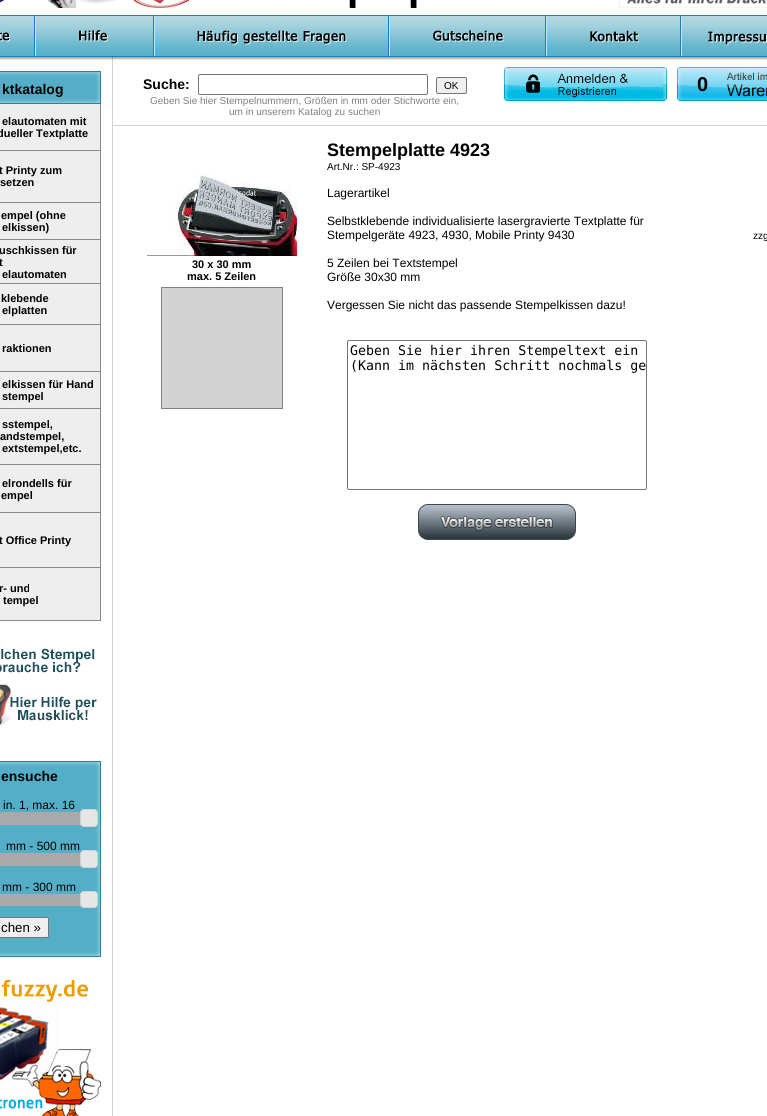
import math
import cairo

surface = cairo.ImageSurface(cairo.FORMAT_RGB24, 767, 1116)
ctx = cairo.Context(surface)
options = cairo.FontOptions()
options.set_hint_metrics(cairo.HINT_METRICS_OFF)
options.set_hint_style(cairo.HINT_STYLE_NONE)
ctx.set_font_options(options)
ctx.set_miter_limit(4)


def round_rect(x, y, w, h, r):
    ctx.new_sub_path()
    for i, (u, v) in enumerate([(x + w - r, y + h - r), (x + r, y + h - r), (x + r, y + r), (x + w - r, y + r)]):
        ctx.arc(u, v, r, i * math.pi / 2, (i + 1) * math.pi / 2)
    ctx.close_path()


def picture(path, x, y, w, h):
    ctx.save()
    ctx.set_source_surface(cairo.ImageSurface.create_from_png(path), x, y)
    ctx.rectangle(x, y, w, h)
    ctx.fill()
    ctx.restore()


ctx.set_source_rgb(1, 1, 1)
ctx.paint()
picture("img1.png", 0, 0, 767, 8)
picture("img2.png", 0, 15, 767, 45)
ctx.set_source_rgb(0.824, 0.824, 0.824)
ctx.rectangle(112, 60, 1, 1056)
ctx.fill()
picture("img3.png", 0, 71, 101, 7)
picture("img4.png", 0, 78, 101, 19)
ctx.select_font_face("Liberation Sans", cairo.FONT_SLANT_NORMAL, cairo.FONT_WEIGHT_BOLD)
ctx.set_font_size(14)
ctx.set_source_rgb(0, 0, 0)
ctx.move_to(2, 94)
ctx.show_text("ktkatalog")
picture("img5.png", 0, 97, 101, 7)
ctx.set_source_rgb(0.933, 0.933, 0.933)
ctx.rectangle(0, 104, 100, 516)
ctx.fill()
ctx.set_source_rgb(0.533, 0.533, 0.533)
ctx.rectangle(100, 104, 1, 517)
ctx.fill()
ctx.rectangle(0, 150, 100, 1)
ctx.fill()
ctx.set_font_size(11)
ctx.set_source_rgb(0, 0, 0)
ctx.move_to(2, 125)
ctx.show_text("elautomaten mit")
ctx.move_to(-3, 137)
ctx.show_text("dueller Textplatte")
ctx.set_source_rgb(0.533, 0.533, 0.533)
ctx.rectangle(0, 202, 100, 1)
ctx.fill()
ctx.set_source_rgb(0, 0, 0)
ctx.move_to(-1, 174)
ctx.show_text("t Printy zum")
ctx.move_to(0, 186)
ctx.show_text("setzen")
ctx.set_source_rgb(0.533, 0.533, 0.533)
ctx.rectangle(0, 239, 100, 1)
ctx.fill()
ctx.set_source_rgb(0, 0, 0)
ctx.move_to(1, 219)
ctx.show_text("empel (ohne")
ctx.move_to(2, 231)
ctx.show_text("elkissen)")
ctx.set_source_rgb(0.533, 0.533, 0.533)
ctx.rectangle(0, 283, 100, 1)
ctx.fill()
ctx.set_source_rgb(0, 0, 0)
ctx.move_to(-1, 254)
ctx.show_text("uschkissen für")
ctx.move_to(-1, 266)
ctx.show_text("t")
ctx.move_to(2, 278)
ctx.show_text("elautomaten")
ctx.set_source_rgb(0.533, 0.533, 0.533)
ctx.rectangle(0, 324, 100, 1)
ctx.fill()
ctx.set_source_rgb(0, 0, 0)
ctx.move_to(1, 302)
ctx.show_text("klebende")
ctx.move_to(2, 314)
ctx.show_text("elplatten")
ctx.set_source_rgb(0.533, 0.533, 0.533)
ctx.rectangle(0, 371, 100, 1)
ctx.fill()
ctx.set_source_rgb(0, 0, 0)
ctx.move_to(2, 352)
ctx.show_text("raktionen")
ctx.set_source_rgb(0.533, 0.533, 0.533)
ctx.rectangle(0, 408, 100, 1)
ctx.fill()
ctx.set_source_rgb(0, 0, 0)
ctx.move_to(2, 388)
ctx.show_text("elkissen für Hand")
ctx.move_to(2, 400)
ctx.show_text("stempel")
ctx.set_source_rgb(0.533, 0.533, 0.533)
ctx.rectangle(0, 464, 100, 1)
ctx.fill()
ctx.set_source_rgb(0, 0, 0)
ctx.move_to(2, 428)
ctx.show_text("sstempel,")
ctx.move_to(0, 440)
ctx.show_text("andstempel,")
ctx.move_to(2, 452)
ctx.show_text("extstempel,etc.")
ctx.set_source_rgb(0.533, 0.533, 0.533)
ctx.rectangle(0, 512, 100, 1)
ctx.fill()
ctx.set_source_rgb(0, 0, 0)
ctx.move_to(2, 487)
ctx.show_text("elrondells für")
ctx.move_to(1, 499)
ctx.show_text("empel")
ctx.set_source_rgb(0.533, 0.533, 0.533)
ctx.rectangle(0, 567, 100, 1)
ctx.fill()
ctx.set_source_rgb(0, 0, 0)
ctx.move_to(-1, 544)
ctx.show_text("t Office Printy")
ctx.set_source_rgb(0.533, 0.533, 0.533)
ctx.rectangle(0, 620, 100, 1)
ctx.fill()
ctx.set_source_rgb(0, 0, 0)
ctx.move_to(-1, 592)
ctx.show_text("r- und")
ctx.move_to(3, 604)
ctx.show_text("tempel")
picture("img6.png", 0, 648, 97, 78)
picture("img3.png", 0, 761, 101, 7)
picture("img7.png", 0, 768, 101, 182)
ctx.set_font_size(14)
ctx.move_to(1, 781)
ctx.show_text("ensuche")
ctx.select_font_face("Liberation Sans")
ctx.set_font_size(12)
ctx.move_to(3, 809)
ctx.show_text("in. 1, max. 16")
ctx.rectangle(-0.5, 812.5, 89, 12)
ctx.set_source_rgb(0.667, 0.667, 0.667)
ctx.set_line_width(1)
ctx.stroke()
ctx.rectangle(0, 813, 81, 11)
ctx.fill()
ctx.set_source_rgb(0.902, 0.902, 0.902)
round_rect(80.5, 809.5, 17, 17, 3.5)
ctx.fill_preserve()
ctx.set_source_rgb(0.827, 0.827, 0.827)
ctx.stroke()
ctx.set_source_rgb(0, 0, 0)
ctx.move_to(6, 850)
ctx.show_text("mm - 500 mm")
ctx.rectangle(-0.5, 853.5, 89, 12)
ctx.set_source_rgb(0.667, 0.667, 0.667)
ctx.stroke()
ctx.rectangle(0, 854, 81, 11)
ctx.fill()
ctx.set_source_rgb(0.902, 0.902, 0.902)
round_rect(80.5, 850.5, 17, 17, 3.5)
ctx.fill_preserve()
ctx.set_source_rgb(0.827, 0.827, 0.827)
ctx.stroke()
ctx.set_source_rgb(0, 0, 0)
ctx.move_to(2, 891)
ctx.show_text("mm - 300 mm")
ctx.rectangle(-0.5, 894.5, 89, 11)
ctx.set_source_rgb(0.667, 0.667, 0.667)
ctx.stroke()
ctx.rectangle(0, 895, 81, 10)
ctx.fill()
ctx.set_source_rgb(0.902, 0.902, 0.902)
round_rect(80.5, 891.5, 17, 16, 3.5)
ctx.fill_preserve()
ctx.set_source_rgb(0.827, 0.827, 0.827)
ctx.stroke()
ctx.set_source_rgb(0.937, 0.937, 0.937)
round_rect(-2.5, 917.5, 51, 20, 1.5)
ctx.fill_preserve()
ctx.set_source_rgb(0.463, 0.463, 0.463)
ctx.stroke()
ctx.set_font_size(13.3)
ctx.set_source_rgb(0, 0, 0)
ctx.move_to(1, 932)
ctx.show_text("chen »")
picture("img5.png", 0, 950, 101, 7)
picture("img8.png", 0, 979, 101, 137)
ctx.set_source_rgb(0.824, 0.824, 0.824)
ctx.rectangle(113, 125, 654, 1)
ctx.fill()
ctx.select_font_face("Liberation Sans", cairo.FONT_SLANT_NORMAL, cairo.FONT_WEIGHT_BOLD)
ctx.set_font_size(14)
ctx.set_source_rgb(0, 0, 0)
ctx.move_to(143, 89)
ctx.show_text("Suche:")
round_rect(198.5, 74.5, 229, 20, 1.5)
ctx.set_source_rgb(0.463, 0.463, 0.463)
ctx.stroke()
ctx.set_source_rgb(0.937, 0.937, 0.937)
round_rect(436.5, 77.5, 30, 16, 1.5)
ctx.fill_preserve()
ctx.set_source_rgb(0.463, 0.463, 0.463)
ctx.stroke()
ctx.select_font_face("Liberation Sans")
ctx.set_font_size(10)
ctx.set_source_rgb(0, 0, 0)
ctx.move_to(444, 89)
ctx.show_text("OK")
ctx.set_source_rgb(0.502, 0.502, 0.502)
ctx.move_to(150, 104)
ctx.show_text("Geben Sie hier Stempelnummern, Größen in mm oder Stichworte ein,")
ctx.move_to(229, 115)
ctx.show_text("um in unserem Katalog zu suchen")
picture("img9.png", 504, 67, 163, 34)
picture("img10.png", 677, 67, 90, 34)
ctx.select_font_face("Liberation Sans", cairo.FONT_SLANT_NORMAL, cairo.FONT_WEIGHT_BOLD)
ctx.set_font_size(20)
ctx.set_source_rgb(0, 0, 0)
ctx.move_to(697, 91)
ctx.show_text("0")
ctx.set_font_size(18)
ctx.move_to(327, 156)
ctx.show_text("Stempelplatte 4923")
ctx.select_font_face("Liberation Sans")
ctx.set_font_size(10)
ctx.move_to(327, 170)
ctx.show_text("Art.Nr.: SP-4923")
ctx.set_font_size(12)
ctx.move_to(327, 197)
ctx.show_text("Lagerartikel")
ctx.move_to(327, 225)
ctx.show_text("Selbstklebende individualisierte lasergravierte Textplatte für")
ctx.move_to(327, 239)
ctx.show_text("Stempelgeräte 4923, 4930, Mobile Printy 9430")
ctx.move_to(327, 267)
ctx.show_text("5 Zeilen bei Textstempel")
ctx.move_to(327, 281)
ctx.show_text("Größe 30x30 mm")
ctx.move_to(327, 309)
ctx.show_text("Vergessen Sie nicht das passende Stempelkissen dazu!")
round_rect(347.5, 340.5, 299, 149, 1.5)
ctx.set_source_rgb(0.463, 0.463, 0.463)
ctx.stroke()
ctx.select_font_face("DejaVu Sans Mono")
ctx.set_font_size(13.3)
ctx.set_source_rgb(0, 0, 0)
ctx.move_to(350, 355)
ctx.show_text("Geben Sie hier ihren Stempeltext ein")
ctx.move_to(350, 370)
ctx.show_text("(Kann im nächsten Schritt nochmals ge")
picture("img11.png", 418, 504, 158, 36)
ctx.select_font_face("Liberation Sans")
ctx.set_font_size(10)
ctx.move_to(753, 239)
ctx.show_text("zzg")
picture("img12.png", 147, 172, 150, 84)
ctx.select_font_face("Liberation Sans", cairo.FONT_SLANT_NORMAL, cairo.FONT_WEIGHT_BOLD)
ctx.set_font_size(11)
ctx.move_to(192, 268)
ctx.show_text("30 x 30 mm")
ctx.move_to(187, 280)
ctx.show_text("max. 5 Zeilen")
ctx.set_source_rgb(0.827, 0.827, 0.827)
ctx.rectangle(161.5, 287.5, 121, 121)
ctx.fill_preserve()
ctx.set_source_rgb(0.502, 0.502, 0.502)
ctx.stroke()
surface.write_to_png("page.png")
